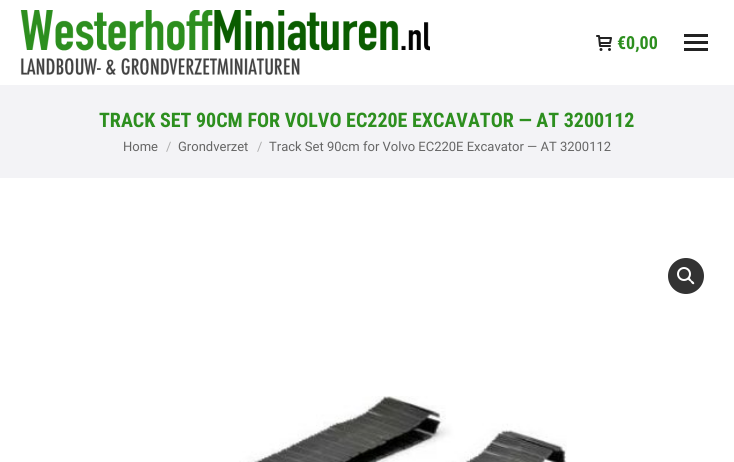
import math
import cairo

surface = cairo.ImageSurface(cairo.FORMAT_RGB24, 734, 462)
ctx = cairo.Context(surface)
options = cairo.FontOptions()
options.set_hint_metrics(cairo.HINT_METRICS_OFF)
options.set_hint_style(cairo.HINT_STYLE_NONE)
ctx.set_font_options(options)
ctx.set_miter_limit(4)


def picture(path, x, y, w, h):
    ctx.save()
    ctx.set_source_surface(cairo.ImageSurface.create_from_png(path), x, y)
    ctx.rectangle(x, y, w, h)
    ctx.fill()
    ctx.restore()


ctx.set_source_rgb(1, 1, 1)
ctx.paint()
picture("img1.png", 20, 10, 410, 65)
picture("img2.png", 596, 35, 16, 16)
ctx.select_font_face("Roboto Condensed", cairo.FONT_SLANT_NORMAL, cairo.FONT_WEIGHT_BOLD)
ctx.set_font_size(18)
ctx.set_source_rgb(0.176, 0.561, 0.122)
ctx.move_to(617, 49)
ctx.show_text("€0,00")
ctx.set_source_rgb(0.133, 0.133, 0.133)
ctx.rectangle(684, 34, 24, 3)
ctx.fill()
ctx.rectangle(684, 41, 24, 3)
ctx.fill()
ctx.rectangle(684, 48, 24, 3)
ctx.fill()
ctx.set_source_rgb(0.953, 0.953, 0.961)
ctx.rectangle(0, 85, 734, 93)
ctx.fill()
ctx.set_font_size(20)
ctx.set_source_rgb(0.176, 0.561, 0.122)
ctx.move_to(99, 127)
ctx.show_text("TRACK SET 90CM FOR VOLVO EC220E EXCAVATOR — AT 3200112")
ctx.select_font_face("Roboto")
ctx.set_font_size(13)
ctx.set_source_rgb(0.4, 0.4, 0.4)
ctx.move_to(123, 151)
ctx.show_text("Home")
ctx.set_source_rgb(0.678, 0.678, 0.682)
ctx.move_to(166, 151)
ctx.show_text("/")
ctx.set_source_rgb(0.4, 0.4, 0.4)
ctx.move_to(178, 151)
ctx.show_text("Grondverzet")
ctx.set_source_rgb(0.678, 0.678, 0.682)
ctx.move_to(257, 151)
ctx.show_text("/")
ctx.set_source_rgb(0.4, 0.4, 0.4)
ctx.move_to(269, 151)
ctx.show_text("Track Set 90cm for Volvo EC220E Excavator — AT 3200112")
ctx.set_source_rgb(0.2, 0.2, 0.2)
ctx.new_path()
ctx.arc(686, 276, 18, 0, 2 * math.pi)
ctx.fill()
ctx.arc(684, 274, 6, 0, 2 * math.pi)
ctx.set_source_rgb(1, 1, 1)
ctx.stroke()
ctx.new_path()
ctx.move_to(688, 278)
ctx.curve_to(689.5, 277, 691, 279.5, 691.5, 280.5)
ctx.curve_to(692.5, 281, 695, 282.5, 694, 284)
ctx.curve_to(692.5, 285, 691, 282.5, 690.5, 281.5)
ctx.curve_to(689.5, 281, 687, 279.5, 688, 278)
ctx.close_path()
ctx.fill()
picture("img3.png", 239, 396, 328, 66)
surface.write_to_png("page.png")
